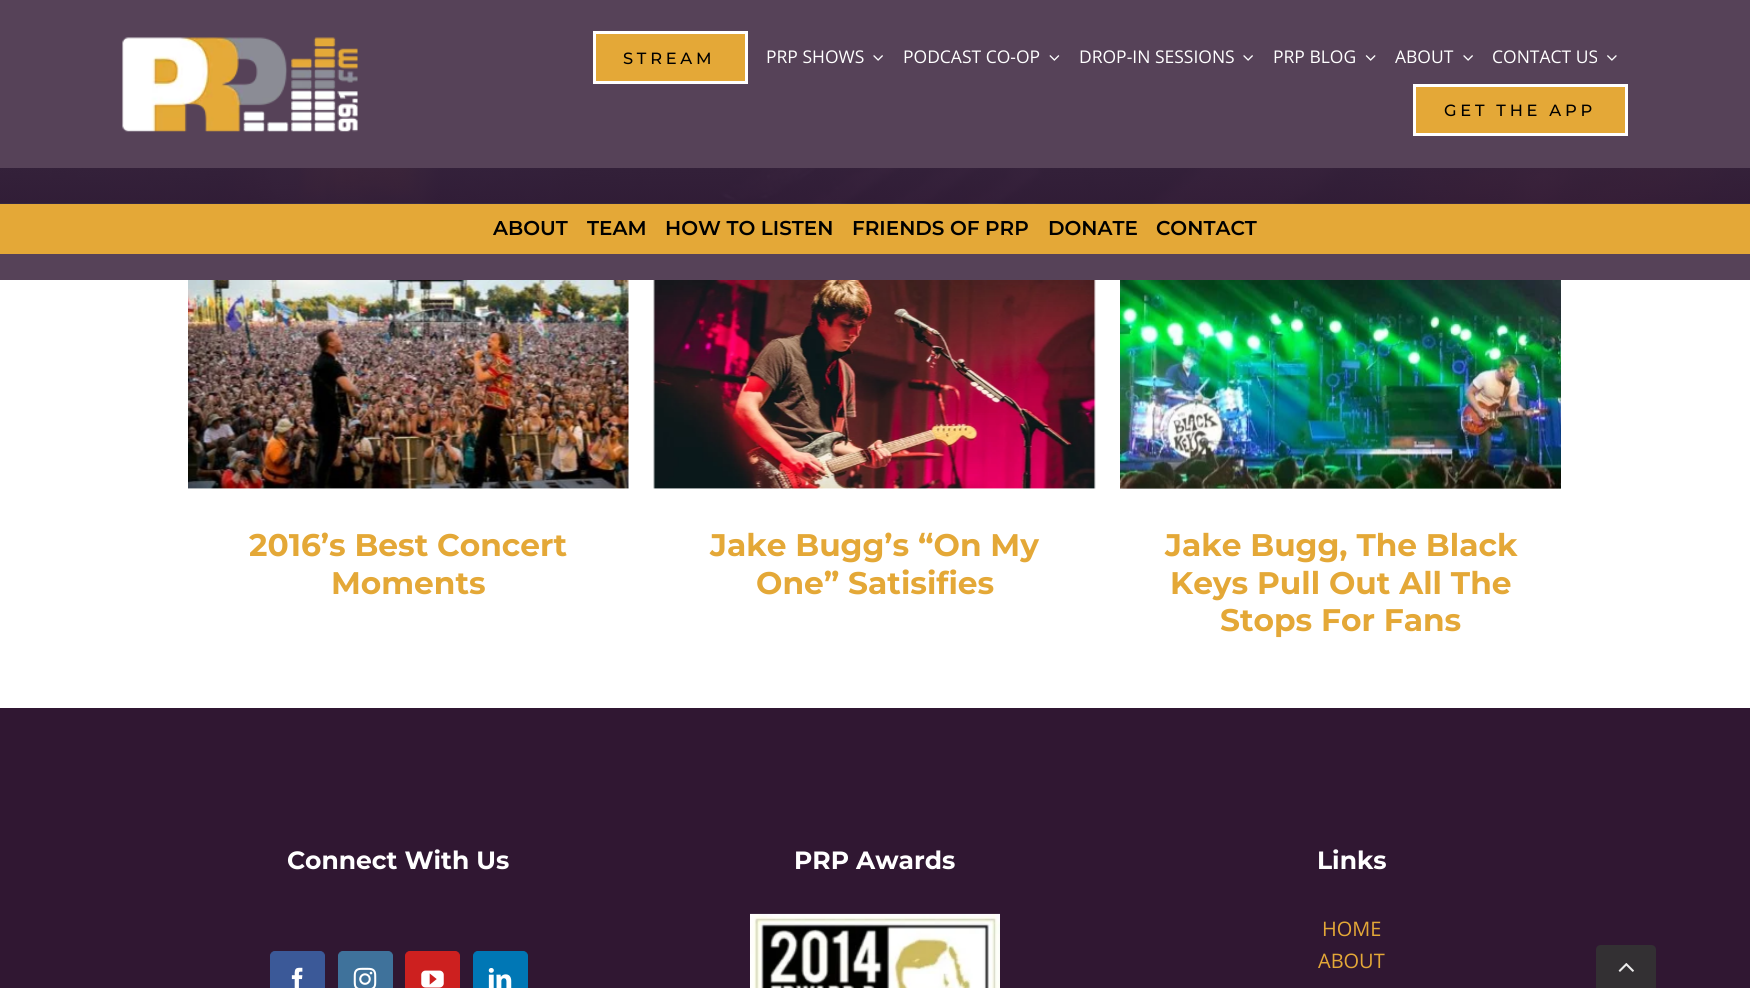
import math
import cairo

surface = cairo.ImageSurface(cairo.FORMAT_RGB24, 1750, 988)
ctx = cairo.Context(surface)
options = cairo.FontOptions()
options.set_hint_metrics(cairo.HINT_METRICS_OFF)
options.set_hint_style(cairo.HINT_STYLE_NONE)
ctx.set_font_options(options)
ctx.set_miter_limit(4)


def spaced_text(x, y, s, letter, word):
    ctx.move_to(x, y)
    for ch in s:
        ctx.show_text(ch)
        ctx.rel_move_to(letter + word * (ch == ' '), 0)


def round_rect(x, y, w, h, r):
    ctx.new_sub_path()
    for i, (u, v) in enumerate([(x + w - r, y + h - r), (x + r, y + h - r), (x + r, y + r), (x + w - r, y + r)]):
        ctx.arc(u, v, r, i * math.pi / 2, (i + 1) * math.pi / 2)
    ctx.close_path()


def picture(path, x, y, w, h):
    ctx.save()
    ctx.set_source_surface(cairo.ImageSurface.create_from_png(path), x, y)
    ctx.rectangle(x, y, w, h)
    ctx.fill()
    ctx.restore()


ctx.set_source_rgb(1, 1, 1)
ctx.paint()
ctx.set_source_rgb(0.337, 0.259, 0.345)
ctx.rectangle(0, 203, 1750, 77)
ctx.fill()
ctx.rectangle(0, 0, 1750, 168)
ctx.fill()
picture("img1.png", 122, 37, 236, 95)
ctx.set_source_rgb(0.894, 0.659, 0.216)
ctx.rectangle(594.5, 32.5, 152, 50)
ctx.fill_preserve()
ctx.set_source_rgb(1, 1, 1)
ctx.set_line_width(3)
ctx.stroke()
ctx.select_font_face("Montserrat Medium")
ctx.set_font_size(16.25)
ctx.set_source_rgb(0, 0, 0)
spaced_text(623, 64, "STREAM", 3.75, 0)
ctx.select_font_face("Open Sans")
ctx.set_font_size(17.5)
ctx.set_source_rgb(1, 1, 1)
ctx.move_to(766, 63)
ctx.show_text("PRP SHOWS")
picture("img2.png", 873, 55, 10, 6)
ctx.move_to(903, 63)
ctx.show_text("PODCAST CO-OP")
picture("img3.png", 1049, 55, 11, 6)
ctx.move_to(1079, 63)
ctx.show_text("DROP-IN SESSIONS")
picture("img2.png", 1243, 55, 10, 6)
ctx.move_to(1273, 63)
ctx.show_text("PRP BLOG")
picture("img4.png", 1365, 55, 11, 6)
ctx.move_to(1395, 63)
ctx.show_text("ABOUT")
picture("img2.png", 1463, 55, 10, 6)
ctx.move_to(1492, 63)
ctx.show_text("CONTACT US")
picture("img5.png", 1607, 55, 10, 6)
ctx.set_source_rgb(0.894, 0.659, 0.216)
ctx.rectangle(1414.5, 85.5, 212, 49)
ctx.fill_preserve()
ctx.set_source_rgb(1, 1, 1)
ctx.stroke()
ctx.select_font_face("Montserrat Medium")
ctx.set_font_size(16.25)
ctx.set_source_rgb(0, 0, 0)
spaced_text(1444, 116, "GET THE APP", 3.75, 0)
picture("img6.png", 0, 168, 1750, 36)
ctx.set_source_rgb(0.894, 0.659, 0.216)
ctx.rectangle(0, 204, 1750, 50)
ctx.fill()
ctx.select_font_face("Montserrat SemiBold")
ctx.set_font_size(20)
ctx.set_source_rgb(0, 0, 0)
ctx.move_to(493, 235)
ctx.show_text("ABOUT")
ctx.move_to(587, 235)
ctx.show_text("TEAM")
ctx.move_to(665, 235)
ctx.show_text("HOW TO LISTEN")
ctx.move_to(852, 235)
ctx.show_text("FRIENDS OF PRP")
ctx.move_to(1048, 235)
ctx.show_text("DONATE")
ctx.move_to(1156, 235)
ctx.show_text("CONTACT")
picture("img7.png", 188, 280, 441, 209)
ctx.select_font_face("Montserrat", cairo.FONT_SLANT_NORMAL, cairo.FONT_WEIGHT_BOLD)
ctx.set_font_size(31.25)
ctx.set_source_rgb(0.894, 0.659, 0.216)
ctx.move_to(249, 556)
ctx.show_text("2016’s Best Concert")
ctx.move_to(331, 594)
ctx.show_text("Moments")
picture("img8.png", 653, 280, 443, 209)
ctx.move_to(710, 556)
ctx.show_text("Jake Bugg’s “On My")
ctx.move_to(756, 594)
ctx.show_text("One” Satisifies")
picture("img9.png", 1120, 280, 441, 209)
ctx.move_to(1165, 556)
ctx.show_text("Jake Bugg, The Black")
ctx.move_to(1170, 594)
ctx.show_text("Keys Pull Out All The")
ctx.move_to(1220, 631)
ctx.show_text("Stops For Fans")
gradient = cairo.LinearGradient(875, 707, 875, 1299)
gradient.add_color_stop_rgba(0.5, 0.188, 0.09, 0.196, 1)
gradient.add_color_stop_rgba(1, 0.337, 0.259, 0.345, 1)
ctx.set_source(gradient)
ctx.rectangle(0, 708, 1750, 280)
ctx.fill()
ctx.set_font_size(25)
ctx.set_source_rgb(1, 1, 1)
ctx.move_to(287, 869)
ctx.show_text("Connect With Us")
ctx.set_source_rgb(0.231, 0.349, 0.596)
round_rect(270.5, 951.5, 54, 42, 4.5)
ctx.fill_preserve()
ctx.set_line_width(1)
ctx.stroke()
picture("img10.png", 291, 967, 12, 21)
ctx.set_source_rgb(0.247, 0.447, 0.608)
round_rect(338.5, 951.5, 54, 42, 4.5)
ctx.fill_preserve()
ctx.stroke()
picture("img11.png", 353, 967, 24, 21)
ctx.set_source_rgb(0.804, 0.125, 0.122)
round_rect(405.5, 951.5, 54, 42, 4.5)
ctx.fill_preserve()
ctx.stroke()
picture("img12.png", 421, 970, 23, 18)
ctx.set_source_rgb(0, 0.467, 0.71)
round_rect(473.5, 951.5, 54, 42, 4.5)
ctx.fill_preserve()
ctx.stroke()
picture("img13.png", 488, 968, 24, 20)
ctx.set_source_rgb(1, 1, 1)
ctx.move_to(794, 869)
ctx.show_text("PRP Awards")
picture("img14.png", 750, 913, 250, 75)
ctx.move_to(1317, 869)
ctx.show_text("Links")
ctx.select_font_face("Open Sans")
ctx.set_font_size(20)
ctx.set_source_rgb(0.894, 0.659, 0.216)
ctx.move_to(1322, 936)
ctx.show_text("HOME")
ctx.move_to(1318, 968)
ctx.show_text("ABOUT")
ctx.set_source_rgb(0.2, 0.188, 0.2)
ctx.new_path()
ctx.move_to(1601, 945)
ctx.line_to(1651, 945)
ctx.curve_to(1654, 945, 1656, 947, 1656, 950)
ctx.line_to(1656, 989)
ctx.line_to(1596, 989)
ctx.line_to(1596, 950)
ctx.curve_to(1596, 947, 1598, 945, 1601, 945)
ctx.close_path()
ctx.fill()
picture("img15.png", 1618, 963, 16, 9)
surface.write_to_png("page.png")
